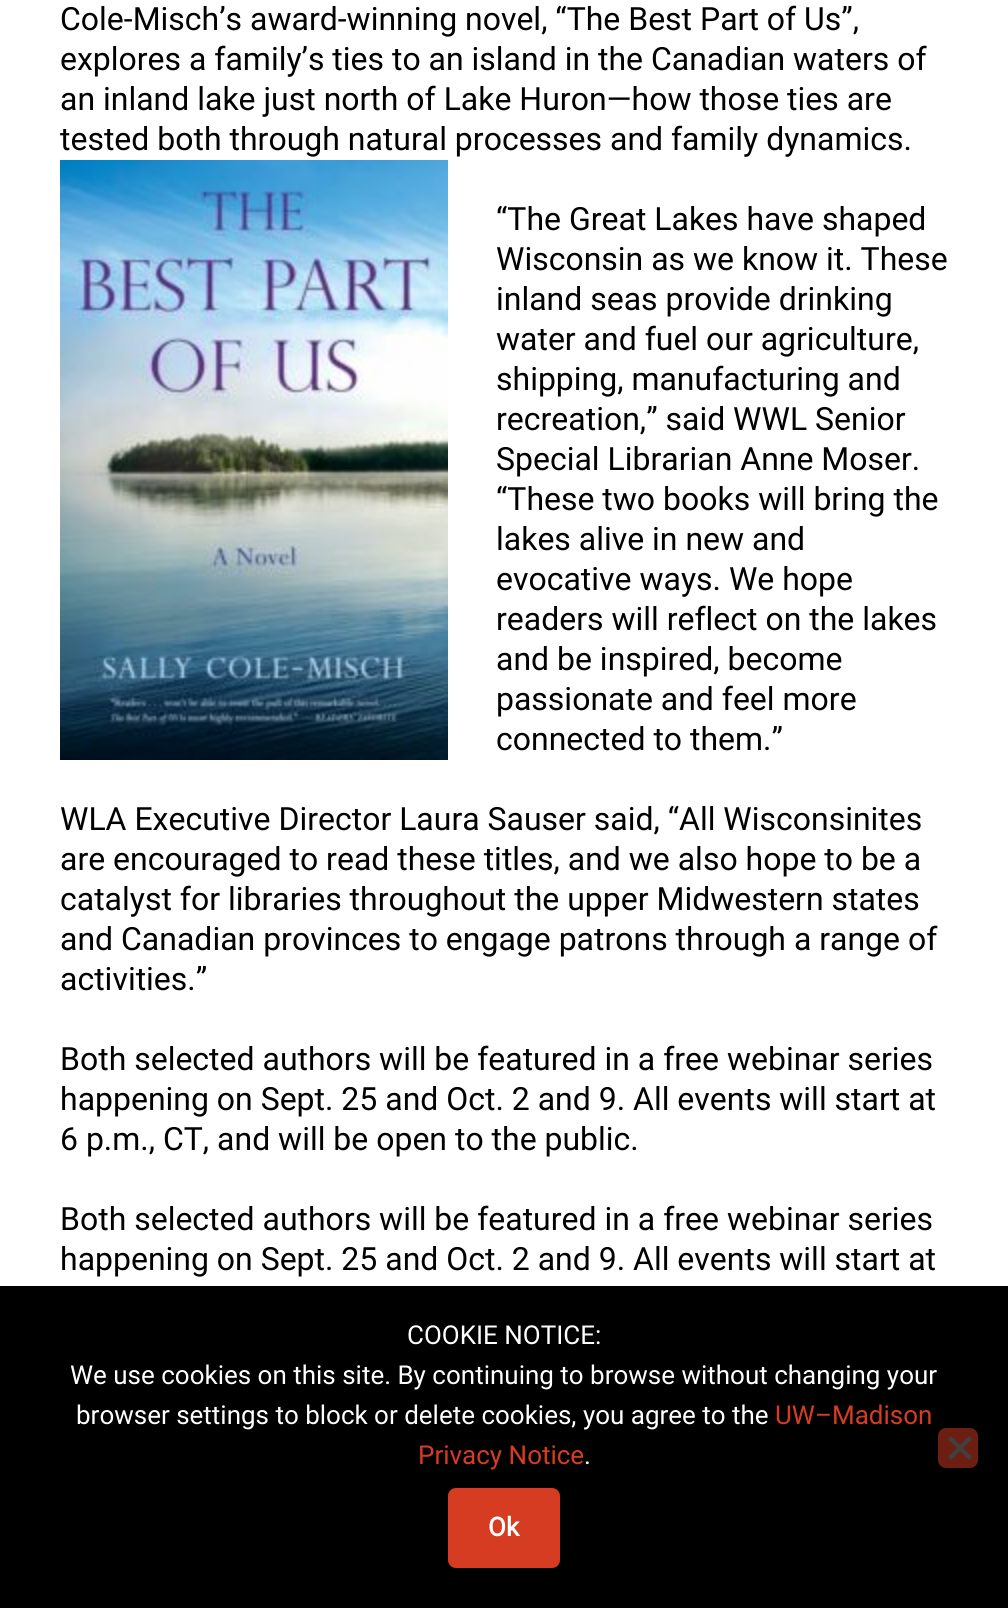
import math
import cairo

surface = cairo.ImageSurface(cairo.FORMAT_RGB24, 1008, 1608)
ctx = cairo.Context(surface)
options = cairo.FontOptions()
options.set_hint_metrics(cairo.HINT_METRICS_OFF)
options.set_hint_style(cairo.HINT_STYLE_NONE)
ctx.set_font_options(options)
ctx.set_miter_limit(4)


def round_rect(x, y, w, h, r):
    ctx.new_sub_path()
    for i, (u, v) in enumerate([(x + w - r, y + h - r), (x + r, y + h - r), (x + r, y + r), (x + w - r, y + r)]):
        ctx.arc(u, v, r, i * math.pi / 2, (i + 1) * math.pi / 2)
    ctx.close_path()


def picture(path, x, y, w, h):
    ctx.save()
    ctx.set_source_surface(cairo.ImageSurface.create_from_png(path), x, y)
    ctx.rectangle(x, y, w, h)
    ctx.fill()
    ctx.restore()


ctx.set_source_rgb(1, 1, 1)
ctx.paint()
ctx.select_font_face("Roboto")
ctx.set_font_size(32)
ctx.set_source_rgb(0, 0, 0)
ctx.move_to(60, 30)
ctx.show_text("Cole-Misch’s award-winning novel, “The Best Part of Us”,")
ctx.move_to(60, 70)
ctx.show_text("explores a family’s ties to an island in the Canadian waters of")
ctx.move_to(60, 110)
ctx.show_text("an inland lake just north of Lake Huron—how those ties are")
ctx.move_to(60, 150)
ctx.show_text("tested both through natural processes and family dynamics.")
picture("img1.png", 60, 160, 388, 600)
ctx.move_to(496, 230)
ctx.show_text("“The Great Lakes have shaped")
ctx.move_to(496, 270)
ctx.show_text("Wisconsin as we know it. These")
ctx.move_to(496, 310)
ctx.show_text("inland seas provide drinking")
ctx.move_to(496, 350)
ctx.show_text("water and fuel our agriculture,")
ctx.move_to(496, 390)
ctx.show_text("shipping, manufacturing and")
ctx.move_to(496, 430)
ctx.show_text("recreation,” said WWL Senior")
ctx.move_to(496, 470)
ctx.show_text("Special Librarian Anne Moser.")
ctx.move_to(496, 510)
ctx.show_text("“These two books will bring the")
ctx.move_to(496, 550)
ctx.show_text("lakes alive in new and")
ctx.move_to(496, 590)
ctx.show_text("evocative ways. We hope")
ctx.move_to(496, 630)
ctx.show_text("readers will reflect on the lakes")
ctx.move_to(496, 670)
ctx.show_text("and be inspired, become")
ctx.move_to(496, 710)
ctx.show_text("passionate and feel more")
ctx.move_to(496, 750)
ctx.show_text("connected to them.”")
ctx.move_to(60, 830)
ctx.show_text("WLA Executive Director Laura Sauser said, “All Wisconsinites")
ctx.move_to(60, 870)
ctx.show_text("are encouraged to read these titles, and we also hope to be a")
ctx.move_to(60, 910)
ctx.show_text("catalyst for libraries throughout the upper Midwestern states")
ctx.move_to(60, 950)
ctx.show_text("and Canadian provinces to engage patrons through a range of")
ctx.move_to(60, 990)
ctx.show_text("activities.”")
ctx.move_to(60, 1070)
ctx.show_text("Both selected authors will be featured in a free webinar series")
ctx.move_to(60, 1110)
ctx.show_text("happening on Sept. 25 and Oct. 2 and 9. All events will start at")
ctx.move_to(60, 1150)
ctx.show_text("6 p.m., CT, and will be open to the public.")
ctx.move_to(60, 1230)
ctx.show_text("Both selected authors will be featured in a free webinar series")
ctx.move_to(60, 1270)
ctx.show_text("happening on Sept. 25 and Oct. 2 and 9. All events will start at")
ctx.rectangle(0, 1286, 1008, 322)
ctx.fill()
ctx.set_font_size(26)
ctx.set_source_rgb(1, 1, 1)
ctx.move_to(407, 1344)
ctx.show_text("COOKIE NOTICE:")
ctx.move_to(70, 1384)
ctx.show_text("We use cookies on this site. By continuing to browse without changing your")
ctx.move_to(76, 1424)
ctx.show_text("browser settings to block or delete cookies, you agree to the")
ctx.set_source_rgb(0.839, 0.235, 0.133)
ctx.move_to(775, 1424)
ctx.show_text("UW–Madison")
ctx.move_to(418, 1464)
ctx.show_text("Privacy Notice")
ctx.set_source_rgb(1, 1, 1)
ctx.move_to(584, 1464)
ctx.show_text(".")
ctx.set_source_rgb(0.42, 0.118, 0.067)
round_rect(938, 1428, 40, 40, 8)
ctx.fill()
ctx.set_source_rgb(0.251, 0.251, 0.251)
ctx.new_path()
ctx.move_to(969, 1436)
ctx.line_to(972, 1439)
ctx.line_to(951, 1460)
ctx.line_to(948, 1457)
ctx.close_path()
ctx.fill()
ctx.new_path()
ctx.move_to(948, 1439)
ctx.line_to(951, 1436)
ctx.line_to(972, 1457)
ctx.line_to(969, 1460)
ctx.close_path()
ctx.fill()
ctx.set_source_rgb(0.839, 0.235, 0.133)
round_rect(448, 1488, 112, 80, 8)
ctx.fill()
ctx.select_font_face("Roboto", cairo.FONT_SLANT_NORMAL, cairo.FONT_WEIGHT_BOLD)
ctx.set_source_rgb(1, 1, 1)
ctx.move_to(488, 1536)
ctx.show_text("Ok")
surface.write_to_png("page.png")
